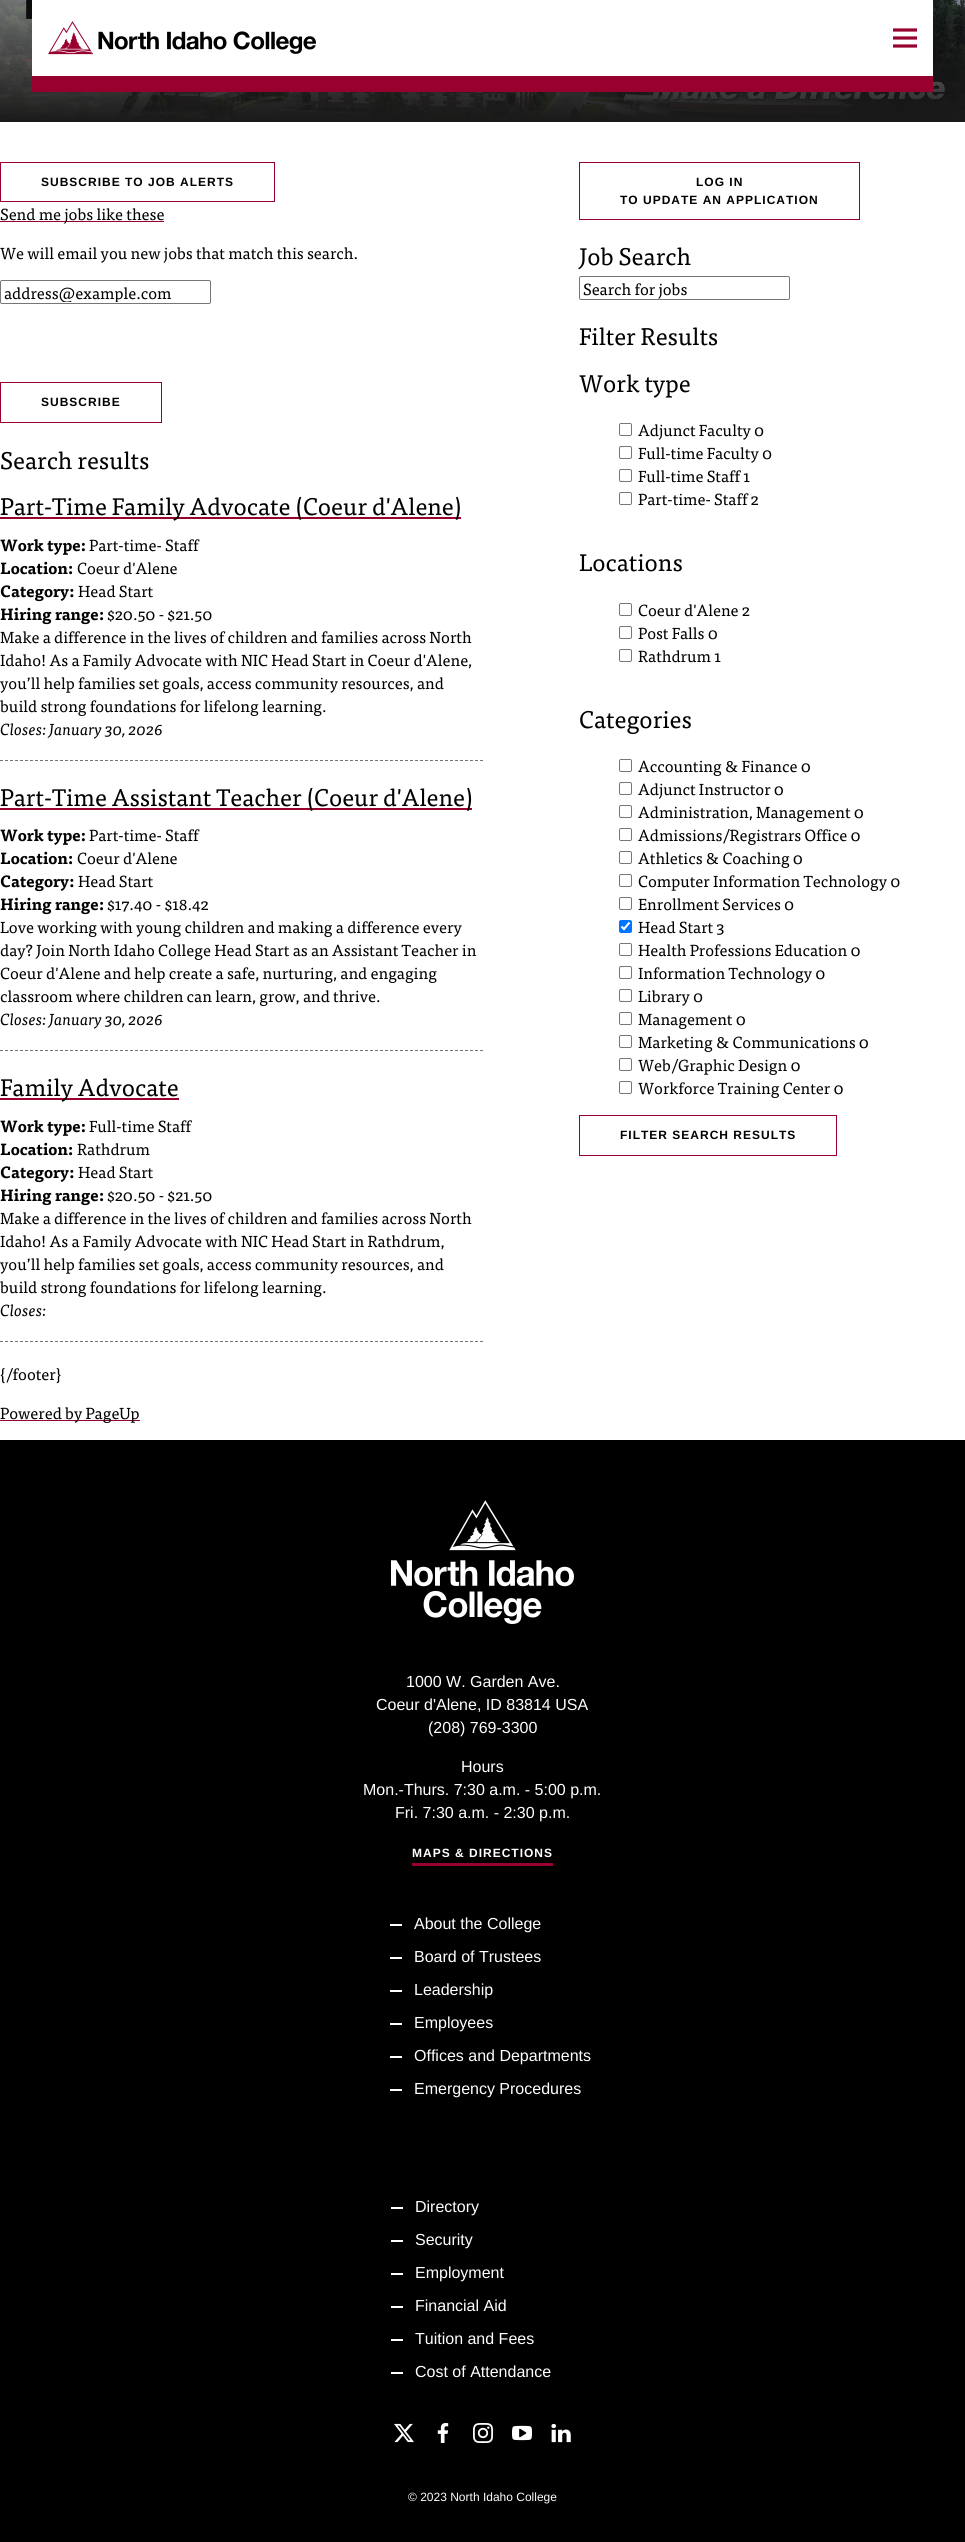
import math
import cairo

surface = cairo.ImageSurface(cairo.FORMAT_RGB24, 965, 2542)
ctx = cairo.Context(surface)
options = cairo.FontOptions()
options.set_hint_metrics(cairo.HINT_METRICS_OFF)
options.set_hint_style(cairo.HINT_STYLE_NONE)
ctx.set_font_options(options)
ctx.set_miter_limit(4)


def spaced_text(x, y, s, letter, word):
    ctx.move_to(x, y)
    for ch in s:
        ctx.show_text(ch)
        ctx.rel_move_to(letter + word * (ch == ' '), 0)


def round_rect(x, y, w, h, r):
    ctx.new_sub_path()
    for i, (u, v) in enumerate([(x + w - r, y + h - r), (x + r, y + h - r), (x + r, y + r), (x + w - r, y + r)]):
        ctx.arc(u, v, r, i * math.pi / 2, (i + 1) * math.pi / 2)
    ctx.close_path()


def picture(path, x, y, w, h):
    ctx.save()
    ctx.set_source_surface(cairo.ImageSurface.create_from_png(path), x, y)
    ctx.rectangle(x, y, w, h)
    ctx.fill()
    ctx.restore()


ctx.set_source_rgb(1, 1, 1)
ctx.paint()
picture("img1.png", 0, 0, 965, 122)
ctx.set_source_rgb(1, 1, 1)
ctx.rectangle(32, 0, 901, 76)
ctx.fill()
ctx.set_source_rgb(0.596, 0, 0.18)
ctx.rectangle(32, 76, 901, 16)
ctx.fill()
picture("img2.png", 48, 21, 268, 34)
picture("img3.png", 893, 28, 24, 20)
ctx.rectangle(0.5, 162.5, 274, 39)
ctx.set_line_width(1)
ctx.stroke()
ctx.select_font_face("Liberation Sans", cairo.FONT_SLANT_NORMAL, cairo.FONT_WEIGHT_BOLD)
ctx.set_font_size(12)
ctx.set_source_rgb(0, 0, 0)
spaced_text(41, 186, "SUBSCRIBE TO JOB ALERTS", 1, 0)
ctx.set_source_rgb(0.596, 0, 0.18)
ctx.rectangle(0, 221, 164, 1)
ctx.fill()
ctx.select_font_face("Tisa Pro")
ctx.set_font_size(16)
ctx.set_source_rgb(0, 0, 0)
ctx.move_to(0, 220)
ctx.show_text("Send me jobs like these")
ctx.move_to(0, 259)
ctx.show_text("We will email you new jobs that match this search.")
round_rect(0.5, 280.5, 210, 23, 1.5)
ctx.set_source_rgb(0.463, 0.463, 0.463)
ctx.stroke()
ctx.save()
ctx.rectangle(4, 282, 203, 20)
ctx.clip()
ctx.set_source_rgb(0, 0, 0)
ctx.move_to(4, 299)
ctx.show_text("address@example.com")
ctx.restore()
ctx.rectangle(0.5, 382.5, 161, 40)
ctx.set_source_rgb(0.596, 0, 0.18)
ctx.stroke()
ctx.select_font_face("Liberation Sans", cairo.FONT_SLANT_NORMAL, cairo.FONT_WEIGHT_BOLD)
ctx.set_font_size(12)
ctx.set_source_rgb(0, 0, 0)
spaced_text(41, 406, "SUBSCRIBE", 1, 0)
ctx.select_font_face("Tisa Pro")
ctx.set_font_size(24)
ctx.move_to(0, 469)
ctx.show_text("Search results")
ctx.set_source_rgb(0.596, 0, 0.18)
ctx.rectangle(0, 517, 461, 2)
ctx.fill()
ctx.set_source_rgb(0, 0, 0)
ctx.move_to(0, 515)
ctx.show_text("Part-Time Family Advocate (Coeur d'Alene)")
ctx.select_font_face("Tisa Pro", cairo.FONT_SLANT_NORMAL, cairo.FONT_WEIGHT_BOLD)
ctx.set_font_size(16)
ctx.move_to(0, 551)
ctx.show_text("Work type:")
ctx.select_font_face("Tisa Pro")
ctx.move_to(89, 551)
ctx.show_text("Part-time- Staff")
ctx.select_font_face("Tisa Pro", cairo.FONT_SLANT_NORMAL, cairo.FONT_WEIGHT_BOLD)
ctx.move_to(0, 574)
ctx.show_text("Location:")
ctx.select_font_face("Tisa Pro")
ctx.move_to(77, 574)
ctx.show_text("Coeur d'Alene")
ctx.select_font_face("Tisa Pro", cairo.FONT_SLANT_NORMAL, cairo.FONT_WEIGHT_BOLD)
ctx.move_to(0, 597)
ctx.show_text("Category:")
ctx.select_font_face("Tisa Pro")
ctx.move_to(78, 597)
ctx.show_text("Head Start")
ctx.select_font_face("Tisa Pro", cairo.FONT_SLANT_NORMAL, cairo.FONT_WEIGHT_BOLD)
ctx.move_to(0, 620)
ctx.show_text("Hiring range:")
ctx.select_font_face("Tisa Pro")
ctx.move_to(107, 620)
ctx.show_text("$20.50 - $21.50")
ctx.move_to(0, 643)
ctx.show_text("Make a difference in the lives of children and families across North")
ctx.move_to(0, 666)
ctx.show_text("Idaho! As a Family Advocate with NIC Head Start in Coeur d'Alene,")
ctx.move_to(0, 689)
ctx.show_text("you’ll help families set goals, access community resources, and")
ctx.move_to(0, 712)
ctx.show_text("build strong foundations for lifelong learning.")
ctx.select_font_face("Tisa Pro", cairo.FONT_SLANT_ITALIC)
ctx.move_to(0, 735)
ctx.show_text("Closes: January 30, 2026")
ctx.new_path()
ctx.move_to(0, 760.5)
ctx.line_to(483, 760.5)
ctx.set_source_rgb(0.459, 0.459, 0.459)
ctx.set_dash([3, 2])
ctx.stroke()
ctx.set_source_rgb(0.596, 0, 0.18)
ctx.rectangle(0, 808, 472, 2)
ctx.fill()
ctx.select_font_face("Tisa Pro")
ctx.set_font_size(24)
ctx.set_source_rgb(0, 0, 0)
ctx.move_to(0, 806)
ctx.show_text("Part-Time Assistant Teacher (Coeur d'Alene)")
ctx.select_font_face("Tisa Pro", cairo.FONT_SLANT_NORMAL, cairo.FONT_WEIGHT_BOLD)
ctx.set_font_size(16)
ctx.move_to(0, 841)
ctx.show_text("Work type:")
ctx.select_font_face("Tisa Pro")
ctx.move_to(89, 841)
ctx.show_text("Part-time- Staff")
ctx.select_font_face("Tisa Pro", cairo.FONT_SLANT_NORMAL, cairo.FONT_WEIGHT_BOLD)
ctx.move_to(0, 864)
ctx.show_text("Location:")
ctx.select_font_face("Tisa Pro")
ctx.move_to(77, 864)
ctx.show_text("Coeur d'Alene")
ctx.select_font_face("Tisa Pro", cairo.FONT_SLANT_NORMAL, cairo.FONT_WEIGHT_BOLD)
ctx.move_to(0, 887)
ctx.show_text("Category:")
ctx.select_font_face("Tisa Pro")
ctx.move_to(78, 887)
ctx.show_text("Head Start")
ctx.select_font_face("Tisa Pro", cairo.FONT_SLANT_NORMAL, cairo.FONT_WEIGHT_BOLD)
ctx.move_to(0, 910)
ctx.show_text("Hiring range:")
ctx.select_font_face("Tisa Pro")
ctx.move_to(107, 910)
ctx.show_text("$17.40 - $18.42")
ctx.move_to(0, 933)
ctx.show_text("Love working with young children and making a difference every")
ctx.move_to(0, 956)
ctx.show_text("day? Join North Idaho College Head Start as an Assistant Teacher in")
ctx.move_to(0, 979)
ctx.show_text("Coeur d'Alene and help create a safe, nurturing, and engaging")
ctx.move_to(0, 1002)
ctx.show_text("classroom where children can learn, grow, and thrive.")
ctx.select_font_face("Tisa Pro", cairo.FONT_SLANT_ITALIC)
ctx.move_to(0, 1025)
ctx.show_text("Closes: January 30, 2026")
ctx.new_path()
ctx.move_to(0, 1050.5)
ctx.line_to(483, 1050.5)
ctx.set_source_rgb(0.459, 0.459, 0.459)
ctx.stroke()
ctx.set_source_rgb(0.596, 0, 0.18)
ctx.rectangle(0, 1098, 179, 2)
ctx.fill()
ctx.select_font_face("Tisa Pro")
ctx.set_font_size(24)
ctx.set_source_rgb(0, 0, 0)
ctx.move_to(0, 1096)
ctx.show_text("Family Advocate")
ctx.select_font_face("Tisa Pro", cairo.FONT_SLANT_NORMAL, cairo.FONT_WEIGHT_BOLD)
ctx.set_font_size(16)
ctx.move_to(0, 1132)
ctx.show_text("Work type:")
ctx.select_font_face("Tisa Pro")
ctx.move_to(89, 1132)
ctx.show_text("Full-time Staff")
ctx.select_font_face("Tisa Pro", cairo.FONT_SLANT_NORMAL, cairo.FONT_WEIGHT_BOLD)
ctx.move_to(0, 1155)
ctx.show_text("Location:")
ctx.select_font_face("Tisa Pro")
ctx.move_to(77, 1155)
ctx.show_text("Rathdrum")
ctx.select_font_face("Tisa Pro", cairo.FONT_SLANT_NORMAL, cairo.FONT_WEIGHT_BOLD)
ctx.move_to(0, 1178)
ctx.show_text("Category:")
ctx.select_font_face("Tisa Pro")
ctx.move_to(78, 1178)
ctx.show_text("Head Start")
ctx.select_font_face("Tisa Pro", cairo.FONT_SLANT_NORMAL, cairo.FONT_WEIGHT_BOLD)
ctx.move_to(0, 1201)
ctx.show_text("Hiring range:")
ctx.select_font_face("Tisa Pro")
ctx.move_to(107, 1201)
ctx.show_text("$20.50 - $21.50")
ctx.move_to(0, 1224)
ctx.show_text("Make a difference in the lives of children and families across North")
ctx.move_to(0, 1247)
ctx.show_text("Idaho! As a Family Advocate with NIC Head Start in Rathdrum,")
ctx.move_to(0, 1270)
ctx.show_text("you’ll help families set goals, access community resources, and")
ctx.move_to(0, 1293)
ctx.show_text("build strong foundations for lifelong learning.")
ctx.select_font_face("Tisa Pro", cairo.FONT_SLANT_ITALIC)
ctx.move_to(0, 1316)
ctx.show_text("Closes:")
ctx.new_path()
ctx.move_to(0, 1341.5)
ctx.line_to(483, 1341.5)
ctx.set_source_rgb(0.459, 0.459, 0.459)
ctx.stroke()
ctx.select_font_face("Tisa Pro")
ctx.set_source_rgb(0, 0, 0)
ctx.move_to(0, 1380)
ctx.show_text("{/footer}")
ctx.set_source_rgb(0.596, 0, 0.18)
ctx.rectangle(0, 1420, 140, 1)
ctx.fill()
ctx.set_source_rgb(0, 0, 0)
ctx.move_to(0, 1419)
ctx.show_text("Powered by PageUp")
ctx.rectangle(579.5, 162.5, 280, 57)
ctx.set_source_rgb(0.596, 0, 0.18)
ctx.set_dash([])
ctx.stroke()
ctx.select_font_face("Liberation Sans", cairo.FONT_SLANT_NORMAL, cairo.FONT_WEIGHT_BOLD)
ctx.set_font_size(12)
ctx.set_source_rgb(0, 0, 0)
spaced_text(696, 186, "LOG IN", 1, 0)
spaced_text(620, 204, "TO UPDATE AN APPLICATION", 1, 0)
ctx.select_font_face("Tisa Pro")
ctx.set_font_size(24)
ctx.move_to(579, 265)
ctx.show_text("Job Search")
round_rect(579.5, 276.5, 210, 23, 1.5)
ctx.set_source_rgb(0.463, 0.463, 0.463)
ctx.stroke()
ctx.set_font_size(16)
ctx.set_source_rgb(0, 0, 0)
ctx.move_to(583, 295)
ctx.show_text("Search for jobs")
ctx.set_font_size(24)
ctx.move_to(579, 345)
ctx.show_text("Filter Results")
ctx.move_to(579, 392)
ctx.show_text("Work type")
round_rect(619.5, 423.5, 12, 12, 1.5)
ctx.set_source_rgb(0.463, 0.463, 0.463)
ctx.stroke()
ctx.set_font_size(16)
ctx.set_source_rgb(0, 0, 0)
ctx.move_to(638, 436)
ctx.show_text("Adjunct Faculty 0")
round_rect(619.5, 446.5, 12, 12, 1.5)
ctx.set_source_rgb(0.463, 0.463, 0.463)
ctx.stroke()
ctx.set_source_rgb(0, 0, 0)
ctx.move_to(638, 459)
ctx.show_text("Full-time Faculty 0")
round_rect(619.5, 469.5, 12, 12, 1.5)
ctx.set_source_rgb(0.463, 0.463, 0.463)
ctx.stroke()
ctx.set_source_rgb(0, 0, 0)
ctx.move_to(638, 482)
ctx.show_text("Full-time Staff 1")
round_rect(619.5, 492.5, 12, 12, 1.5)
ctx.set_source_rgb(0.463, 0.463, 0.463)
ctx.stroke()
ctx.set_source_rgb(0, 0, 0)
ctx.move_to(638, 505)
ctx.show_text("Part-time- Staff 2")
ctx.set_font_size(24)
ctx.move_to(579, 571)
ctx.show_text("Locations")
round_rect(619.5, 603.5, 12, 12, 1.5)
ctx.set_source_rgb(0.463, 0.463, 0.463)
ctx.stroke()
ctx.set_font_size(16)
ctx.set_source_rgb(0, 0, 0)
ctx.move_to(638, 616)
ctx.show_text("Coeur d'Alene 2")
round_rect(619.5, 626.5, 12, 12, 1.5)
ctx.set_source_rgb(0.463, 0.463, 0.463)
ctx.stroke()
ctx.set_source_rgb(0, 0, 0)
ctx.move_to(638, 639)
ctx.show_text("Post Falls 0")
round_rect(619.5, 649.5, 12, 12, 1.5)
ctx.set_source_rgb(0.463, 0.463, 0.463)
ctx.stroke()
ctx.set_source_rgb(0, 0, 0)
ctx.move_to(638, 662)
ctx.show_text("Rathdrum 1")
ctx.set_font_size(24)
ctx.move_to(579, 728)
ctx.show_text("Categories")
round_rect(619.5, 759.5, 12, 12, 1.5)
ctx.set_source_rgb(0.463, 0.463, 0.463)
ctx.stroke()
ctx.set_font_size(16)
ctx.set_source_rgb(0, 0, 0)
ctx.move_to(638, 772)
ctx.show_text("Accounting & Finance 0")
round_rect(619.5, 782.5, 12, 12, 1.5)
ctx.set_source_rgb(0.463, 0.463, 0.463)
ctx.stroke()
ctx.set_source_rgb(0, 0, 0)
ctx.move_to(638, 795)
ctx.show_text("Adjunct Instructor 0")
round_rect(619.5, 805.5, 12, 12, 1.5)
ctx.set_source_rgb(0.463, 0.463, 0.463)
ctx.stroke()
ctx.set_source_rgb(0, 0, 0)
ctx.move_to(638, 818)
ctx.show_text("Administration, Management 0")
round_rect(619.5, 828.5, 12, 12, 1.5)
ctx.set_source_rgb(0.463, 0.463, 0.463)
ctx.stroke()
ctx.set_source_rgb(0, 0, 0)
ctx.move_to(638, 841)
ctx.show_text("Admissions/Registrars Office 0")
round_rect(619.5, 851.5, 12, 12, 1.5)
ctx.set_source_rgb(0.463, 0.463, 0.463)
ctx.stroke()
ctx.set_source_rgb(0, 0, 0)
ctx.move_to(638, 864)
ctx.show_text("Athletics & Coaching 0")
round_rect(619.5, 874.5, 12, 12, 1.5)
ctx.set_source_rgb(0.463, 0.463, 0.463)
ctx.stroke()
ctx.set_source_rgb(0, 0, 0)
ctx.move_to(638, 887)
ctx.show_text("Computer Information Technology 0")
round_rect(619.5, 897.5, 12, 12, 1.5)
ctx.set_source_rgb(0.463, 0.463, 0.463)
ctx.stroke()
ctx.set_source_rgb(0, 0, 0)
ctx.move_to(638, 910)
ctx.show_text("Enrollment Services 0")
ctx.set_source_rgb(0, 0.459, 1)
round_rect(619, 920, 13, 13, 2)
ctx.fill()
ctx.new_path()
ctx.move_to(621.5, 926.5)
ctx.line_to(624, 929)
ctx.line_to(629.5, 922.5)
ctx.set_source_rgb(1, 1, 1)
ctx.set_line_width(2.1)
ctx.stroke()
ctx.set_source_rgb(0, 0, 0)
ctx.move_to(638, 933)
ctx.show_text("Head Start 3")
round_rect(619.5, 943.5, 12, 12, 1.5)
ctx.set_source_rgb(0.463, 0.463, 0.463)
ctx.set_line_width(1)
ctx.stroke()
ctx.set_source_rgb(0, 0, 0)
ctx.move_to(638, 956)
ctx.show_text("Health Professions Education 0")
round_rect(619.5, 966.5, 12, 12, 1.5)
ctx.set_source_rgb(0.463, 0.463, 0.463)
ctx.stroke()
ctx.set_source_rgb(0, 0, 0)
ctx.move_to(638, 979)
ctx.show_text("Information Technology 0")
round_rect(619.5, 989.5, 12, 12, 1.5)
ctx.set_source_rgb(0.463, 0.463, 0.463)
ctx.stroke()
ctx.set_source_rgb(0, 0, 0)
ctx.move_to(638, 1002)
ctx.show_text("Library 0")
round_rect(619.5, 1012.5, 12, 12, 1.5)
ctx.set_source_rgb(0.463, 0.463, 0.463)
ctx.stroke()
ctx.set_source_rgb(0, 0, 0)
ctx.move_to(638, 1025)
ctx.show_text("Management 0")
round_rect(619.5, 1035.5, 12, 12, 1.5)
ctx.set_source_rgb(0.463, 0.463, 0.463)
ctx.stroke()
ctx.set_source_rgb(0, 0, 0)
ctx.move_to(638, 1048)
ctx.show_text("Marketing & Communications 0")
round_rect(619.5, 1058.5, 12, 12, 1.5)
ctx.set_source_rgb(0.463, 0.463, 0.463)
ctx.stroke()
ctx.set_source_rgb(0, 0, 0)
ctx.move_to(638, 1071)
ctx.show_text("Web/Graphic Design 0")
round_rect(619.5, 1081.5, 12, 12, 1.5)
ctx.set_source_rgb(0.463, 0.463, 0.463)
ctx.stroke()
ctx.set_source_rgb(0, 0, 0)
ctx.move_to(638, 1094)
ctx.show_text("Workforce Training Center 0")
ctx.rectangle(579.5, 1115.5, 257, 40)
ctx.set_source_rgb(0.596, 0, 0.18)
ctx.stroke()
ctx.select_font_face("Liberation Sans", cairo.FONT_SLANT_NORMAL, cairo.FONT_WEIGHT_BOLD)
ctx.set_font_size(12)
ctx.set_source_rgb(0, 0, 0)
spaced_text(620, 1139, "FILTER SEARCH RESULTS", 1, 0)
ctx.rectangle(0, 1440, 965, 1102)
ctx.fill()
picture("img4.png", 391, 1500, 183, 124)
ctx.select_font_face("Liberation Sans")
ctx.set_font_size(16)
ctx.set_source_rgb(1, 1, 1)
ctx.move_to(406, 1687)
ctx.show_text("1000 W. Garden Ave.")
ctx.move_to(376, 1710)
ctx.show_text("Coeur d'Alene, ID 83814 USA")
ctx.move_to(428, 1733)
ctx.show_text("(208) 769-3300")
ctx.move_to(461, 1772)
ctx.show_text("Hours")
ctx.move_to(363, 1795)
ctx.show_text("Mon.-Thurs. 7:30 a.m. - 5:00 p.m.")
ctx.move_to(395, 1818)
ctx.show_text("Fri. 7:30 a.m. - 2:30 p.m.")
ctx.select_font_face("Liberation Sans", cairo.FONT_SLANT_NORMAL, cairo.FONT_WEIGHT_BOLD)
ctx.set_font_size(12)
spaced_text(412, 1857, "MAPS & DIRECTIONS", 1, 0)
ctx.set_source_rgb(0.596, 0, 0.18)
ctx.rectangle(412, 1863, 141, 3)
ctx.fill()
ctx.set_source_rgb(1, 1, 1)
ctx.rectangle(390, 1924, 12, 2)
ctx.fill()
ctx.select_font_face("Liberation Sans")
ctx.set_font_size(16)
ctx.move_to(414, 1929)
ctx.show_text("About the College")
ctx.rectangle(390, 1957, 12, 2)
ctx.fill()
ctx.move_to(414, 1962)
ctx.show_text("Board of Trustees")
ctx.rectangle(390, 1990, 12, 2)
ctx.fill()
ctx.move_to(414, 1995)
ctx.show_text("Leadership")
ctx.rectangle(390, 2023, 12, 2)
ctx.fill()
ctx.move_to(414, 2028)
ctx.show_text("Employees")
ctx.rectangle(390, 2056, 12, 2)
ctx.fill()
ctx.move_to(414, 2061)
ctx.show_text("Offices and Departments")
ctx.rectangle(390, 2089, 12, 2)
ctx.fill()
ctx.move_to(414, 2094)
ctx.show_text("Emergency Procedures")
ctx.rectangle(391, 2207, 12, 2)
ctx.fill()
ctx.move_to(415, 2212)
ctx.show_text("Directory")
ctx.rectangle(391, 2240, 12, 2)
ctx.fill()
ctx.move_to(415, 2245)
ctx.show_text("Security")
ctx.rectangle(391, 2273, 12, 2)
ctx.fill()
ctx.move_to(415, 2278)
ctx.show_text("Employment")
ctx.rectangle(391, 2306, 12, 2)
ctx.fill()
ctx.move_to(415, 2311)
ctx.show_text("Financial Aid")
ctx.rectangle(391, 2339, 12, 2)
ctx.fill()
ctx.move_to(415, 2344)
ctx.show_text("Tuition and Fees")
ctx.rectangle(391, 2372, 12, 2)
ctx.fill()
ctx.move_to(415, 2377)
ctx.show_text("Cost of Attendance")
picture("img5.png", 394, 2423, 20, 20)
picture("img6.png", 437, 2423, 12, 20)
picture("img7.png", 473, 2423, 20, 20)
picture("img8.png", 512, 2425, 20, 16)
picture("img9.png", 551, 2423, 20, 20)
ctx.set_font_size(12)
ctx.move_to(408, 2501)
ctx.show_text("© 2023 North Idaho College")
surface.write_to_png("page.png")
